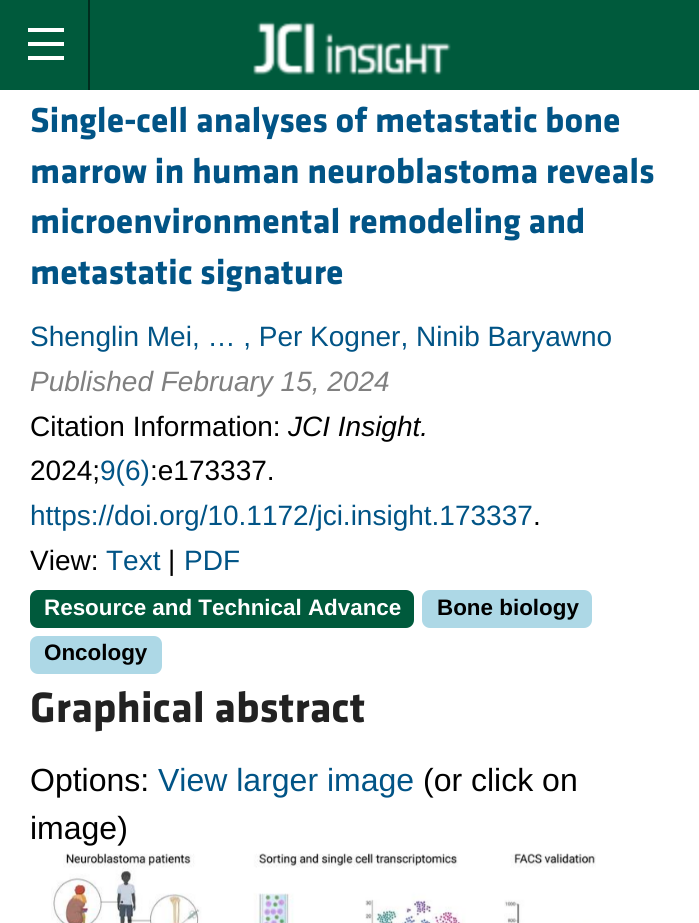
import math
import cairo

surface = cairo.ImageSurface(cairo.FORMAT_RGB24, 699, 923)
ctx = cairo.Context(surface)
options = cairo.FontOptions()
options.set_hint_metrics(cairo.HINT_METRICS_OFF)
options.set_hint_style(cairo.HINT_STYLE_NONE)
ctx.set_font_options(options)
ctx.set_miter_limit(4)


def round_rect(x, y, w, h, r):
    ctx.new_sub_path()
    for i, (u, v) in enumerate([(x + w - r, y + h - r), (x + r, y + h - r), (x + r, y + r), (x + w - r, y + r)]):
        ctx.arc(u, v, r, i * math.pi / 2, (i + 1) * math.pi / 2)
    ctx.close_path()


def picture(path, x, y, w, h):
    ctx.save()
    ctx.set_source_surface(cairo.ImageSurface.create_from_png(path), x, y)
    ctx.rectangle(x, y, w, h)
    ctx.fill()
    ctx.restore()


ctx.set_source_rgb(1, 1, 1)
ctx.paint()
ctx.set_source_rgb(0, 0.353, 0.235)
ctx.rectangle(0, 0, 699, 90)
ctx.fill()
ctx.set_source_rgb(0, 0.176, 0.118)
ctx.rectangle(88, 0, 2, 90)
ctx.fill()
ctx.set_source_rgb(1, 1, 1)
ctx.rectangle(28, 56, 36, 4)
ctx.fill()
ctx.rectangle(28, 42, 36, 4)
ctx.fill()
ctx.rectangle(28, 28, 36, 4)
ctx.fill()
picture("img1.png", 253, 21, 198, 54)
ctx.select_font_face("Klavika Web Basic", cairo.FONT_SLANT_NORMAL, cairo.FONT_WEIGHT_BOLD)
ctx.set_font_size(36)
ctx.set_source_rgb(0.004, 0.329, 0.525)
ctx.move_to(30, 132)
ctx.show_text("Single-cell analyses of metastatic bone")
ctx.move_to(30, 183)
ctx.show_text("marrow in human neuroblastoma reveals")
ctx.move_to(30, 233)
ctx.show_text("microenvironmental remodeling and")
ctx.move_to(30, 284)
ctx.show_text("metastatic signature")
ctx.select_font_face("Liberation Sans")
ctx.set_font_size(28)
ctx.move_to(30, 346)
ctx.show_text("Shenglin Mei, … , Per Kogner, Ninib Baryawno")
ctx.select_font_face("Liberation Sans", cairo.FONT_SLANT_ITALIC)
ctx.set_source_rgb(0.502, 0.502, 0.502)
ctx.move_to(30, 391)
ctx.show_text("Published February 15, 2024")
ctx.select_font_face("Liberation Sans")
ctx.set_source_rgb(0, 0, 0)
ctx.move_to(30, 436)
ctx.show_text("Citation Information:")
ctx.select_font_face("Liberation Sans", cairo.FONT_SLANT_ITALIC)
ctx.move_to(288, 436)
ctx.show_text("JCI Insight.")
ctx.select_font_face("Liberation Sans")
ctx.move_to(30, 480)
ctx.show_text("2024;")
ctx.set_source_rgb(0.004, 0.329, 0.525)
ctx.move_to(100, 480)
ctx.show_text("9(6)")
ctx.set_source_rgb(0, 0, 0)
ctx.move_to(150, 480)
ctx.show_text(":e173337.")
ctx.set_source_rgb(0.004, 0.329, 0.525)
ctx.move_to(30, 525)
ctx.show_text("https://doi.org/10.1172/jci.insight.173337")
ctx.set_source_rgb(0, 0, 0)
ctx.move_to(533, 525)
ctx.show_text(".")
ctx.move_to(30, 570)
ctx.show_text("View:")
ctx.set_source_rgb(0.004, 0.329, 0.525)
ctx.move_to(106, 570)
ctx.show_text("Text")
ctx.set_source_rgb(0, 0, 0)
ctx.move_to(168, 570)
ctx.show_text("|")
ctx.set_source_rgb(0.004, 0.329, 0.525)
ctx.move_to(184, 570)
ctx.show_text("PDF")
ctx.set_source_rgb(0, 0.353, 0.235)
round_rect(30, 590, 384, 38, 8)
ctx.fill()
ctx.select_font_face("Liberation Sans", cairo.FONT_SLANT_NORMAL, cairo.FONT_WEIGHT_BOLD)
ctx.set_font_size(22.4)
ctx.set_source_rgb(1, 1, 1)
ctx.move_to(44, 615)
ctx.show_text("Resource and Technical Advance")
ctx.set_source_rgb(0.678, 0.847, 0.902)
round_rect(422, 590, 170, 38, 8)
ctx.fill()
ctx.set_source_rgb(0, 0, 0)
ctx.move_to(437, 615)
ctx.show_text("Bone biology")
ctx.set_source_rgb(0.678, 0.847, 0.902)
round_rect(30, 636, 132, 38, 8)
ctx.fill()
ctx.set_source_rgb(0, 0, 0)
ctx.move_to(44, 660)
ctx.show_text("Oncology")
ctx.select_font_face("Klavika Web Basic", cairo.FONT_SLANT_NORMAL, cairo.FONT_WEIGHT_BOLD)
ctx.set_font_size(44)
ctx.set_source_rgb(0.133, 0.133, 0.133)
ctx.move_to(30, 722)
ctx.show_text("Graphical abstract")
ctx.select_font_face("Liberation Sans")
ctx.set_font_size(32)
ctx.set_source_rgb(0, 0, 0)
ctx.move_to(30, 791)
ctx.show_text("Options:")
ctx.set_source_rgb(0.004, 0.329, 0.525)
ctx.move_to(158, 791)
ctx.show_text("View larger image")
ctx.set_source_rgb(0, 0, 0)
ctx.move_to(423, 791)
ctx.show_text("(or click on")
ctx.move_to(30, 839)
ctx.show_text("image)")
picture("img2.png", 51, 853, 545, 70)
surface.write_to_png("page.png")
